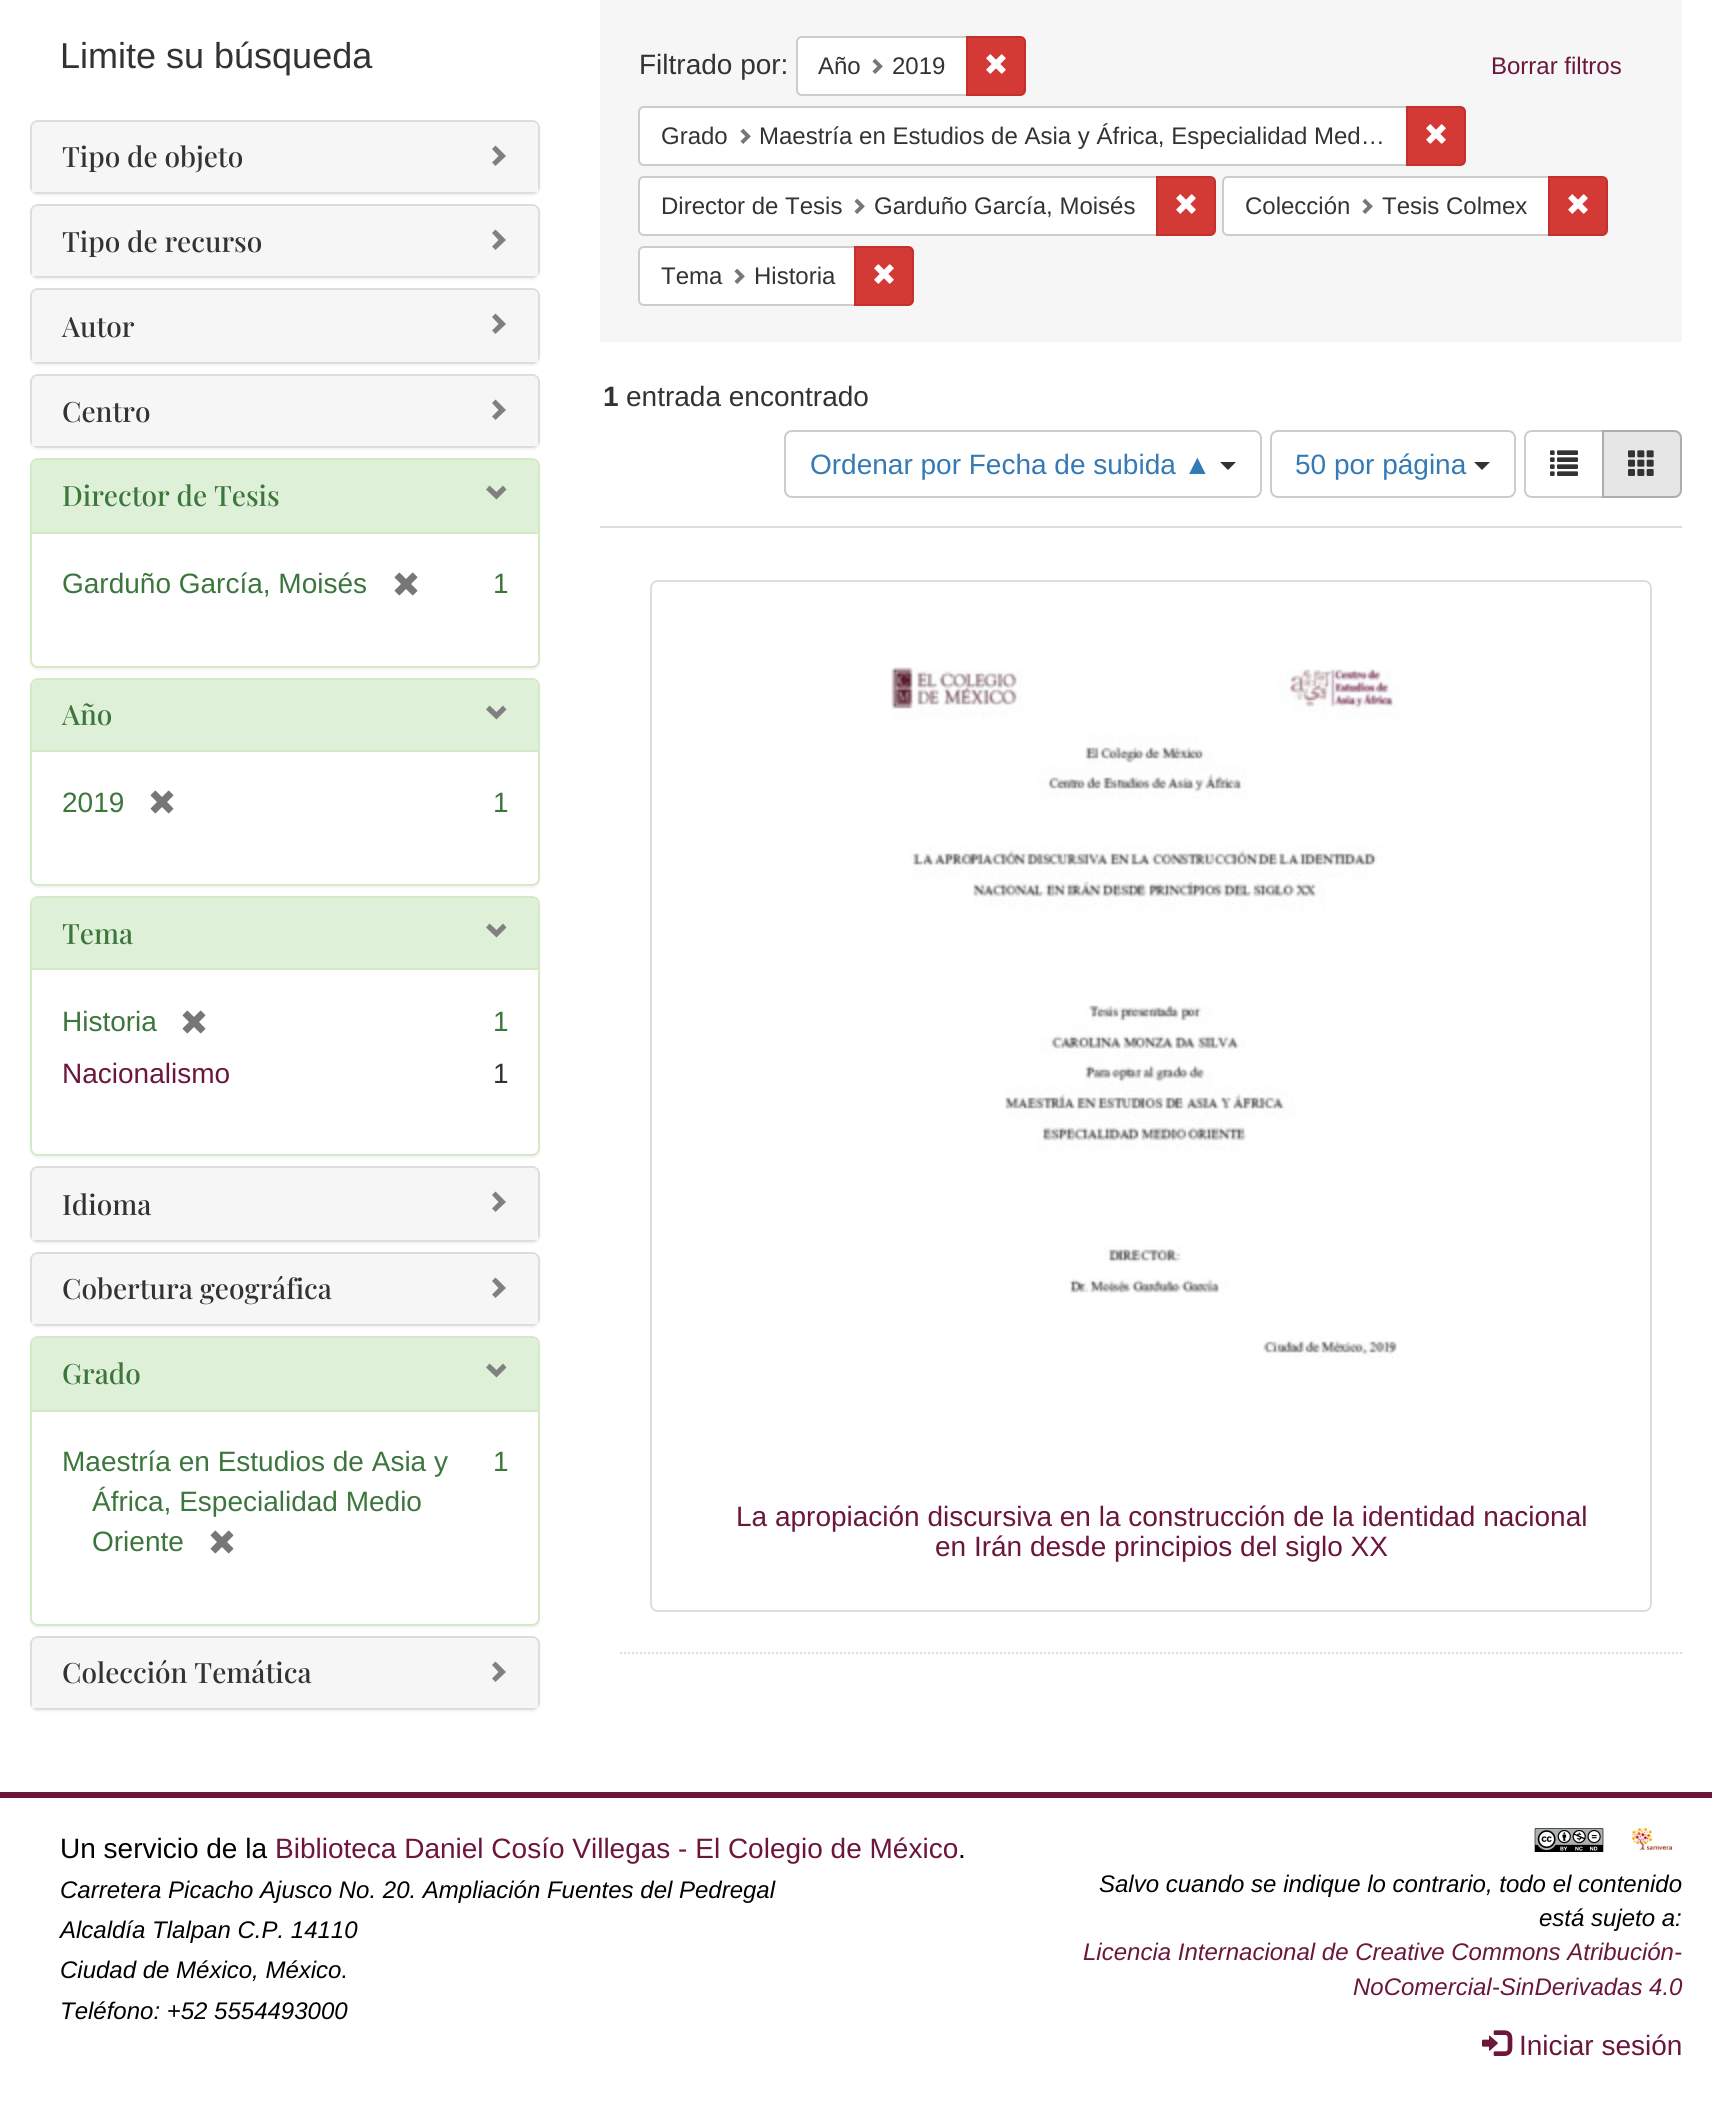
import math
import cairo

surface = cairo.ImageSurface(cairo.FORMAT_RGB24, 1712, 2114)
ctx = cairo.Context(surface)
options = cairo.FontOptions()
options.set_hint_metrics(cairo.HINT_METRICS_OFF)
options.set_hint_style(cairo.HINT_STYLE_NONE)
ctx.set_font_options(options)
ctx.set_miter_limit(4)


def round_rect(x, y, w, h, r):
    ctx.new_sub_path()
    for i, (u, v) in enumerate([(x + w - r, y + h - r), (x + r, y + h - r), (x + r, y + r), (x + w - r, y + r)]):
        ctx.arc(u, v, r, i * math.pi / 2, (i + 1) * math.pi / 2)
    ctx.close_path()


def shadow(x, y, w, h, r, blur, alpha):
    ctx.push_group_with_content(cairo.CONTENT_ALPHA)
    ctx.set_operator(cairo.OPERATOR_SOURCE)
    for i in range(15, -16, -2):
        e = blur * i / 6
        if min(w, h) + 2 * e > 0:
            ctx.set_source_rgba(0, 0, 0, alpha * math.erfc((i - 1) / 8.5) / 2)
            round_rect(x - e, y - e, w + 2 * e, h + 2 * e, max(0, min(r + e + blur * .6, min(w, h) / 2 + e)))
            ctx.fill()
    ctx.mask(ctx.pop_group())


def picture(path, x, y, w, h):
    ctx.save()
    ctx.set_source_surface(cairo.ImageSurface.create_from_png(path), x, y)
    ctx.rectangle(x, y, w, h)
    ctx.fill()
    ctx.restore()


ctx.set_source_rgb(1, 1, 1)
ctx.paint()
ctx.select_font_face("Liberation Sans")
ctx.set_font_size(36)
ctx.set_source_rgb(0.2, 0.2, 0.2)
ctx.move_to(60, 68)
ctx.show_text("Limite su búsqueda")
ctx.set_source_rgb(0, 0, 0)
shadow(30, 122, 510, 74, 8, 1, 0.05)
round_rect(31, 121, 508, 72, 7)
ctx.set_source_rgb(0.867, 0.867, 0.867)
ctx.stroke()
ctx.set_source_rgb(0.961, 0.961, 0.961)
ctx.new_path()
ctx.move_to(38, 122)
ctx.line_to(532, 122)
ctx.curve_to(535.5, 122, 538, 124.5, 538, 128)
ctx.line_to(538, 192)
ctx.line_to(32, 192)
ctx.line_to(32, 128)
ctx.curve_to(32, 124.5, 34.5, 122, 38, 122)
ctx.close_path()
ctx.fill()
ctx.select_font_face("Playfair Display Medium")
ctx.set_font_size(28)
ctx.set_source_rgb(0.2, 0.2, 0.2)
ctx.move_to(62, 167)
ctx.show_text("Tipo de objeto")
ctx.set_source_rgb(0.502, 0.502, 0.502)
ctx.new_path()
ctx.move_to(506, 156)
ctx.line_to(495.5, 166)
ctx.line_to(492, 162.5)
ctx.line_to(498.5, 156)
ctx.line_to(492, 149)
ctx.line_to(495.5, 145.5)
ctx.close_path()
ctx.fill()
ctx.set_source_rgb(0, 0, 0)
shadow(30, 206, 510, 74, 8, 1, 0.05)
round_rect(31, 205, 508, 72, 7)
ctx.set_source_rgb(0.867, 0.867, 0.867)
ctx.stroke()
ctx.set_source_rgb(0.961, 0.961, 0.961)
ctx.new_path()
ctx.move_to(38, 206)
ctx.line_to(532, 206)
ctx.curve_to(535.5, 206, 538, 208.5, 538, 212)
ctx.line_to(538, 276)
ctx.line_to(32, 276)
ctx.line_to(32, 212)
ctx.curve_to(32, 208.5, 34.5, 206, 38, 206)
ctx.close_path()
ctx.fill()
ctx.set_source_rgb(0.2, 0.2, 0.2)
ctx.move_to(62, 252)
ctx.show_text("Tipo de recurso")
ctx.set_source_rgb(0.502, 0.502, 0.502)
ctx.new_path()
ctx.move_to(506, 240)
ctx.line_to(495.5, 250)
ctx.line_to(492, 246.5)
ctx.line_to(498.5, 240)
ctx.line_to(492, 233)
ctx.line_to(495.5, 229.5)
ctx.close_path()
ctx.fill()
ctx.set_source_rgb(0, 0, 0)
shadow(30, 290, 510, 76, 8, 1, 0.05)
round_rect(31, 289, 508, 74, 7)
ctx.set_source_rgb(0.867, 0.867, 0.867)
ctx.stroke()
ctx.set_source_rgb(0.961, 0.961, 0.961)
ctx.new_path()
ctx.move_to(38, 290)
ctx.line_to(532, 290)
ctx.curve_to(535.5, 290, 538, 292.5, 538, 296)
ctx.line_to(538, 362)
ctx.line_to(32, 362)
ctx.line_to(32, 296)
ctx.curve_to(32, 292.5, 34.5, 290, 38, 290)
ctx.close_path()
ctx.fill()
ctx.set_source_rgb(0.2, 0.2, 0.2)
ctx.move_to(62, 337)
ctx.show_text("Autor")
ctx.set_source_rgb(0.502, 0.502, 0.502)
ctx.new_path()
ctx.move_to(506, 324)
ctx.line_to(495.5, 334)
ctx.line_to(492, 330.5)
ctx.line_to(498.5, 324)
ctx.line_to(492, 317)
ctx.line_to(495.5, 313.5)
ctx.close_path()
ctx.fill()
ctx.set_source_rgb(0, 0, 0)
shadow(30, 376, 510, 74, 8, 1, 0.05)
round_rect(31, 375, 508, 72, 7)
ctx.set_source_rgb(0.867, 0.867, 0.867)
ctx.stroke()
ctx.set_source_rgb(0.961, 0.961, 0.961)
ctx.new_path()
ctx.move_to(38, 376)
ctx.line_to(532, 376)
ctx.curve_to(535.5, 376, 538, 378.5, 538, 382)
ctx.line_to(538, 446)
ctx.line_to(32, 446)
ctx.line_to(32, 382)
ctx.curve_to(32, 378.5, 34.5, 376, 38, 376)
ctx.close_path()
ctx.fill()
ctx.set_source_rgb(0.2, 0.2, 0.2)
ctx.move_to(62, 422)
ctx.show_text("Centro")
ctx.set_source_rgb(0.502, 0.502, 0.502)
ctx.new_path()
ctx.move_to(506, 410)
ctx.line_to(495.5, 420)
ctx.line_to(492, 416.5)
ctx.line_to(498.5, 410)
ctx.line_to(492, 403)
ctx.line_to(495.5, 399.5)
ctx.close_path()
ctx.fill()
ctx.set_source_rgb(0, 0, 0)
shadow(30, 460, 510, 210, 8, 1, 0.05)
ctx.set_source_rgb(1, 1, 1)
round_rect(31, 459, 508, 208, 7)
ctx.fill_preserve()
ctx.set_source_rgb(0.839, 0.914, 0.776)
ctx.stroke()
ctx.set_source_rgb(0.875, 0.941, 0.847)
ctx.new_path()
ctx.move_to(38, 460)
ctx.line_to(532, 460)
ctx.curve_to(535.5, 460, 538, 462.5, 538, 466)
ctx.line_to(538, 532)
ctx.line_to(32, 532)
ctx.line_to(32, 466)
ctx.curve_to(32, 462.5, 34.5, 460, 38, 460)
ctx.close_path()
ctx.fill()
ctx.set_source_rgb(0.235, 0.463, 0.239)
ctx.move_to(62, 506)
ctx.show_text("Director de Tesis")
ctx.set_source_rgb(0.502, 0.502, 0.502)
ctx.new_path()
ctx.move_to(506.5, 489.5)
ctx.line_to(496.5, 499.5)
ctx.line_to(486, 489.5)
ctx.line_to(489.5, 485.5)
ctx.line_to(496.5, 492)
ctx.line_to(503, 485.5)
ctx.close_path()
ctx.fill()
ctx.set_source_rgb(0.839, 0.914, 0.776)
ctx.rectangle(32, 532, 506, 2)
ctx.fill()
ctx.select_font_face("Liberation Sans")
ctx.set_source_rgb(0.235, 0.463, 0.239)
ctx.move_to(62, 593)
ctx.show_text("Garduño García, Moisés")
picture("img1.png", 394, 572, 24, 24)
ctx.move_to(493, 593)
ctx.show_text("1")
ctx.set_source_rgb(0, 0, 0)
shadow(30, 680, 510, 208, 8, 1, 0.05)
ctx.set_source_rgb(1, 1, 1)
round_rect(31, 679, 508, 206, 7)
ctx.fill_preserve()
ctx.set_source_rgb(0.839, 0.914, 0.776)
ctx.stroke()
ctx.set_source_rgb(0.875, 0.941, 0.847)
ctx.new_path()
ctx.move_to(38, 680)
ctx.line_to(532, 680)
ctx.curve_to(535.5, 680, 538, 682.5, 538, 686)
ctx.line_to(538, 750)
ctx.line_to(32, 750)
ctx.line_to(32, 686)
ctx.curve_to(32, 682.5, 34.5, 680, 38, 680)
ctx.close_path()
ctx.fill()
ctx.select_font_face("Playfair Display Medium")
ctx.set_source_rgb(0.235, 0.463, 0.239)
ctx.move_to(62, 725)
ctx.show_text("Año")
ctx.set_source_rgb(0.502, 0.502, 0.502)
ctx.new_path()
ctx.move_to(506.5, 709.5)
ctx.line_to(496.5, 719.5)
ctx.line_to(486, 709.5)
ctx.line_to(489.5, 705.5)
ctx.line_to(496.5, 712)
ctx.line_to(503, 705.5)
ctx.close_path()
ctx.fill()
ctx.set_source_rgb(0.839, 0.914, 0.776)
ctx.rectangle(32, 750, 506, 2)
ctx.fill()
ctx.select_font_face("Liberation Sans")
ctx.set_source_rgb(0.235, 0.463, 0.239)
ctx.move_to(62, 812)
ctx.show_text("2019")
picture("img1.png", 150, 790, 24, 24)
ctx.move_to(493, 812)
ctx.show_text("1")
ctx.set_source_rgb(0, 0, 0)
shadow(30, 898, 510, 260, 8, 1, 0.05)
ctx.set_source_rgb(1, 1, 1)
round_rect(31, 897, 508, 258, 7)
ctx.fill_preserve()
ctx.set_source_rgb(0.839, 0.914, 0.776)
ctx.stroke()
ctx.set_source_rgb(0.875, 0.941, 0.847)
ctx.new_path()
ctx.move_to(38, 898)
ctx.line_to(532, 898)
ctx.curve_to(535.5, 898, 538, 900.5, 538, 904)
ctx.line_to(538, 968)
ctx.line_to(32, 968)
ctx.line_to(32, 904)
ctx.curve_to(32, 900.5, 34.5, 898, 38, 898)
ctx.close_path()
ctx.fill()
ctx.select_font_face("Playfair Display Medium")
ctx.set_source_rgb(0.235, 0.463, 0.239)
ctx.move_to(62, 944)
ctx.show_text("Tema")
ctx.set_source_rgb(0.502, 0.502, 0.502)
ctx.new_path()
ctx.move_to(506.5, 927.5)
ctx.line_to(496.5, 937.5)
ctx.line_to(486, 927.5)
ctx.line_to(489.5, 923.5)
ctx.line_to(496.5, 930)
ctx.line_to(503, 923.5)
ctx.close_path()
ctx.fill()
ctx.set_source_rgb(0.839, 0.914, 0.776)
ctx.rectangle(32, 968, 506, 2)
ctx.fill()
ctx.select_font_face("Liberation Sans")
ctx.set_source_rgb(0.235, 0.463, 0.239)
ctx.move_to(62, 1031)
ctx.show_text("Historia")
picture("img1.png", 182, 1010, 24, 24)
ctx.move_to(493, 1031)
ctx.show_text("1")
ctx.set_source_rgb(0.42, 0.086, 0.227)
ctx.move_to(62, 1083)
ctx.show_text("Nacionalismo")
ctx.set_source_rgb(0.2, 0.2, 0.2)
ctx.move_to(493, 1083)
ctx.show_text("1")
ctx.set_source_rgb(0, 0, 0)
shadow(30, 1168, 510, 76, 8, 1, 0.05)
round_rect(31, 1167, 508, 74, 7)
ctx.set_source_rgb(0.867, 0.867, 0.867)
ctx.stroke()
ctx.set_source_rgb(0.961, 0.961, 0.961)
ctx.new_path()
ctx.move_to(38, 1168)
ctx.line_to(532, 1168)
ctx.curve_to(535.5, 1168, 538, 1170.5, 538, 1174)
ctx.line_to(538, 1240)
ctx.line_to(32, 1240)
ctx.line_to(32, 1174)
ctx.curve_to(32, 1170.5, 34.5, 1168, 38, 1168)
ctx.close_path()
ctx.fill()
ctx.select_font_face("Playfair Display Medium")
ctx.set_source_rgb(0.2, 0.2, 0.2)
ctx.move_to(62, 1215)
ctx.show_text("Idioma")
ctx.set_source_rgb(0.502, 0.502, 0.502)
ctx.new_path()
ctx.move_to(506, 1202)
ctx.line_to(495.5, 1212)
ctx.line_to(492, 1208.5)
ctx.line_to(498.5, 1202)
ctx.line_to(492, 1195)
ctx.line_to(495.5, 1191.5)
ctx.close_path()
ctx.fill()
ctx.set_source_rgb(0, 0, 0)
shadow(30, 1254, 510, 74, 8, 1, 0.05)
round_rect(31, 1253, 508, 72, 7)
ctx.set_source_rgb(0.867, 0.867, 0.867)
ctx.stroke()
ctx.set_source_rgb(0.961, 0.961, 0.961)
ctx.new_path()
ctx.move_to(38, 1254)
ctx.line_to(532, 1254)
ctx.curve_to(535.5, 1254, 538, 1256.5, 538, 1260)
ctx.line_to(538, 1324)
ctx.line_to(32, 1324)
ctx.line_to(32, 1260)
ctx.curve_to(32, 1256.5, 34.5, 1254, 38, 1254)
ctx.close_path()
ctx.fill()
ctx.set_source_rgb(0.2, 0.2, 0.2)
ctx.move_to(62, 1299)
ctx.show_text("Cobertura geográfica")
ctx.set_source_rgb(0.502, 0.502, 0.502)
ctx.new_path()
ctx.move_to(506, 1288)
ctx.line_to(495.5, 1298)
ctx.line_to(492, 1294.5)
ctx.line_to(498.5, 1288)
ctx.line_to(492, 1281)
ctx.line_to(495.5, 1277.5)
ctx.close_path()
ctx.fill()
ctx.set_source_rgb(0, 0, 0)
shadow(30, 1338, 510, 290, 8, 1, 0.05)
ctx.set_source_rgb(1, 1, 1)
round_rect(31, 1337, 508, 288, 7)
ctx.fill_preserve()
ctx.set_source_rgb(0.839, 0.914, 0.776)
ctx.stroke()
ctx.set_source_rgb(0.875, 0.941, 0.847)
ctx.new_path()
ctx.move_to(38, 1338)
ctx.line_to(532, 1338)
ctx.curve_to(535.5, 1338, 538, 1340.5, 538, 1344)
ctx.line_to(538, 1410)
ctx.line_to(32, 1410)
ctx.line_to(32, 1344)
ctx.curve_to(32, 1340.5, 34.5, 1338, 38, 1338)
ctx.close_path()
ctx.fill()
ctx.set_source_rgb(0.235, 0.463, 0.239)
ctx.move_to(62, 1384)
ctx.show_text("Grado")
ctx.set_source_rgb(0.502, 0.502, 0.502)
ctx.new_path()
ctx.move_to(506.5, 1367.5)
ctx.line_to(496.5, 1377.5)
ctx.line_to(486, 1367.5)
ctx.line_to(489.5, 1363.5)
ctx.line_to(496.5, 1370)
ctx.line_to(503, 1363.5)
ctx.close_path()
ctx.fill()
ctx.set_source_rgb(0.839, 0.914, 0.776)
ctx.rectangle(32, 1410, 506, 2)
ctx.fill()
ctx.select_font_face("Liberation Sans")
ctx.set_source_rgb(0.235, 0.463, 0.239)
ctx.move_to(62, 1471)
ctx.show_text("Maestría en Estudios de Asia y")
ctx.move_to(92, 1511)
ctx.show_text("África, Especialidad Medio")
ctx.move_to(92, 1551)
ctx.show_text("Oriente")
picture("img1.png", 210, 1530, 24, 24)
ctx.move_to(493, 1471)
ctx.show_text("1")
ctx.set_source_rgb(0, 0, 0)
shadow(30, 1638, 510, 74, 8, 1, 0.05)
round_rect(31, 1637, 508, 72, 7)
ctx.set_source_rgb(0.867, 0.867, 0.867)
ctx.stroke()
ctx.set_source_rgb(0.961, 0.961, 0.961)
ctx.new_path()
ctx.move_to(38, 1638)
ctx.line_to(532, 1638)
ctx.curve_to(535.5, 1638, 538, 1640.5, 538, 1644)
ctx.line_to(538, 1708)
ctx.line_to(32, 1708)
ctx.line_to(32, 1644)
ctx.curve_to(32, 1640.5, 34.5, 1638, 38, 1638)
ctx.close_path()
ctx.fill()
ctx.select_font_face("Playfair Display Medium")
ctx.set_source_rgb(0.2, 0.2, 0.2)
ctx.move_to(62, 1683)
ctx.show_text("Colección Temática")
ctx.set_source_rgb(0.502, 0.502, 0.502)
ctx.new_path()
ctx.move_to(506, 1672)
ctx.line_to(495.5, 1682)
ctx.line_to(492, 1678.5)
ctx.line_to(498.5, 1672)
ctx.line_to(492, 1665)
ctx.line_to(495.5, 1661.5)
ctx.close_path()
ctx.fill()
ctx.set_source_rgb(0.961, 0.961, 0.961)
ctx.rectangle(600, 0, 1082, 342)
ctx.fill()
ctx.select_font_face("Liberation Sans")
ctx.set_source_rgb(0.2, 0.2, 0.2)
ctx.move_to(639, 74)
ctx.show_text("Filtrado por:")
ctx.set_source_rgb(1, 1, 1)
ctx.new_path()
ctx.move_to(802, 37)
ctx.line_to(967, 37)
ctx.line_to(967, 95)
ctx.line_to(802, 95)
ctx.curve_to(799, 95, 797, 93, 797, 90)
ctx.line_to(797, 42)
ctx.curve_to(797, 39, 799, 37, 802, 37)
ctx.close_path()
ctx.fill_preserve()
ctx.set_source_rgb(0.8, 0.8, 0.8)
ctx.stroke()
ctx.set_font_size(24)
ctx.set_source_rgb(0.2, 0.2, 0.2)
ctx.move_to(818, 74)
ctx.show_text("Año")
picture("img2.png", 872, 58, 11, 16)
ctx.move_to(892, 74)
ctx.show_text("2019")
ctx.set_source_rgb(0.827, 0.227, 0.208)
ctx.new_path()
ctx.move_to(967, 37)
ctx.line_to(1020, 37)
ctx.curve_to(1023, 37, 1025, 39, 1025, 42)
ctx.line_to(1025, 90)
ctx.curve_to(1025, 93, 1023, 95, 1020, 95)
ctx.line_to(967, 95)
ctx.close_path()
ctx.fill_preserve()
ctx.set_source_rgb(0.769, 0.188, 0.169)
ctx.stroke()
picture("img3.png", 986, 54, 20, 20)
ctx.set_source_rgb(0.42, 0.086, 0.227)
ctx.move_to(1491, 74)
ctx.show_text("Borrar filtros")
ctx.set_source_rgb(1, 1, 1)
ctx.new_path()
ctx.move_to(644, 107)
ctx.line_to(1407, 107)
ctx.line_to(1407, 165)
ctx.line_to(644, 165)
ctx.curve_to(641, 165, 639, 163, 639, 160)
ctx.line_to(639, 112)
ctx.curve_to(639, 109, 641, 107, 644, 107)
ctx.close_path()
ctx.fill_preserve()
ctx.set_source_rgb(0.8, 0.8, 0.8)
ctx.stroke()
ctx.set_source_rgb(0.2, 0.2, 0.2)
ctx.move_to(661, 144)
ctx.show_text("Grado")
picture("img2.png", 740, 128, 11, 16)
ctx.move_to(759, 144)
ctx.show_text("Maestría en Estudios de Asia y África, Especialidad Med…")
ctx.set_source_rgb(0.827, 0.227, 0.208)
ctx.new_path()
ctx.move_to(1407, 107)
ctx.line_to(1460, 107)
ctx.curve_to(1463, 107, 1465, 109, 1465, 112)
ctx.line_to(1465, 160)
ctx.curve_to(1465, 163, 1463, 165, 1460, 165)
ctx.line_to(1407, 165)
ctx.close_path()
ctx.fill_preserve()
ctx.set_source_rgb(0.769, 0.188, 0.169)
ctx.stroke()
picture("img3.png", 1426, 124, 20, 20)
ctx.set_source_rgb(1, 1, 1)
ctx.new_path()
ctx.move_to(644, 177)
ctx.line_to(1157, 177)
ctx.line_to(1157, 235)
ctx.line_to(644, 235)
ctx.curve_to(641, 235, 639, 233, 639, 230)
ctx.line_to(639, 182)
ctx.curve_to(639, 179, 641, 177, 644, 177)
ctx.close_path()
ctx.fill_preserve()
ctx.set_source_rgb(0.8, 0.8, 0.8)
ctx.stroke()
ctx.set_source_rgb(0.2, 0.2, 0.2)
ctx.move_to(661, 214)
ctx.show_text("Director de Tesis")
picture("img2.png", 854, 198, 11, 16)
ctx.move_to(874, 214)
ctx.show_text("Garduño García, Moisés")
ctx.set_source_rgb(0.827, 0.227, 0.208)
ctx.new_path()
ctx.move_to(1157, 177)
ctx.line_to(1210, 177)
ctx.curve_to(1213, 177, 1215, 179, 1215, 182)
ctx.line_to(1215, 230)
ctx.curve_to(1215, 233, 1213, 235, 1210, 235)
ctx.line_to(1157, 235)
ctx.close_path()
ctx.fill_preserve()
ctx.set_source_rgb(0.769, 0.188, 0.169)
ctx.stroke()
picture("img3.png", 1176, 194, 20, 20)
ctx.set_source_rgb(1, 1, 1)
ctx.new_path()
ctx.move_to(1228, 177)
ctx.line_to(1549, 177)
ctx.line_to(1549, 235)
ctx.line_to(1228, 235)
ctx.curve_to(1225, 235, 1223, 233, 1223, 230)
ctx.line_to(1223, 182)
ctx.curve_to(1223, 179, 1225, 177, 1228, 177)
ctx.close_path()
ctx.fill_preserve()
ctx.set_source_rgb(0.8, 0.8, 0.8)
ctx.stroke()
ctx.set_source_rgb(0.2, 0.2, 0.2)
ctx.move_to(1245, 214)
ctx.show_text("Colección")
picture("img2.png", 1362, 198, 11, 16)
ctx.move_to(1382, 214)
ctx.show_text("Tesis Colmex")
ctx.set_source_rgb(0.827, 0.227, 0.208)
ctx.new_path()
ctx.move_to(1549, 177)
ctx.line_to(1602, 177)
ctx.curve_to(1605, 177, 1607, 179, 1607, 182)
ctx.line_to(1607, 230)
ctx.curve_to(1607, 233, 1605, 235, 1602, 235)
ctx.line_to(1549, 235)
ctx.close_path()
ctx.fill_preserve()
ctx.set_source_rgb(0.769, 0.188, 0.169)
ctx.stroke()
picture("img3.png", 1568, 194, 20, 20)
ctx.set_source_rgb(1, 1, 1)
ctx.new_path()
ctx.move_to(644, 247)
ctx.line_to(855, 247)
ctx.line_to(855, 305)
ctx.line_to(644, 305)
ctx.curve_to(641, 305, 639, 303, 639, 300)
ctx.line_to(639, 252)
ctx.curve_to(639, 249, 641, 247, 644, 247)
ctx.close_path()
ctx.fill_preserve()
ctx.set_source_rgb(0.8, 0.8, 0.8)
ctx.stroke()
ctx.set_source_rgb(0.2, 0.2, 0.2)
ctx.move_to(661, 284)
ctx.show_text("Tema")
picture("img2.png", 734, 268, 11, 16)
ctx.move_to(754, 284)
ctx.show_text("Historia")
ctx.set_source_rgb(0.827, 0.227, 0.208)
ctx.new_path()
ctx.move_to(855, 247)
ctx.line_to(908, 247)
ctx.curve_to(911, 247, 913, 249, 913, 252)
ctx.line_to(913, 300)
ctx.curve_to(913, 303, 911, 305, 908, 305)
ctx.line_to(855, 305)
ctx.close_path()
ctx.fill_preserve()
ctx.set_source_rgb(0.769, 0.188, 0.169)
ctx.stroke()
picture("img3.png", 874, 264, 20, 20)
ctx.set_source_rgb(0.867, 0.867, 0.867)
ctx.rectangle(600, 526, 1082, 2)
ctx.fill()
ctx.select_font_face("Liberation Sans", cairo.FONT_SLANT_NORMAL, cairo.FONT_WEIGHT_BOLD)
ctx.set_font_size(28)
ctx.set_source_rgb(0.2, 0.2, 0.2)
ctx.move_to(603, 406)
ctx.show_text("1")
ctx.select_font_face("Liberation Sans")
ctx.move_to(626, 406)
ctx.show_text("entrada encontrado")
round_rect(785, 431, 476, 66, 7)
ctx.set_source_rgb(0.8, 0.8, 0.8)
ctx.stroke()
ctx.set_source_rgb(0.2, 0.478, 0.718)
ctx.move_to(810, 474)
ctx.show_text("Ordenar por Fecha de subida ▲")
ctx.set_source_rgb(0.2, 0.2, 0.2)
ctx.new_path()
ctx.move_to(1220, 462)
ctx.line_to(1236, 462)
ctx.line_to(1228, 470)
ctx.close_path()
ctx.fill()
round_rect(1271, 431, 244, 66, 7)
ctx.set_source_rgb(0.8, 0.8, 0.8)
ctx.stroke()
ctx.set_source_rgb(0.2, 0.478, 0.718)
ctx.move_to(1295, 474)
ctx.show_text("50 por página")
ctx.set_source_rgb(0.2, 0.2, 0.2)
ctx.new_path()
ctx.move_to(1474, 462)
ctx.line_to(1490, 462)
ctx.line_to(1482, 470)
ctx.close_path()
ctx.fill()
ctx.new_path()
ctx.move_to(1532, 431)
ctx.line_to(1603, 431)
ctx.line_to(1603, 497)
ctx.line_to(1532, 497)
ctx.curve_to(1528, 497, 1525, 494, 1525, 490)
ctx.line_to(1525, 438)
ctx.curve_to(1525, 434, 1528, 431, 1532, 431)
ctx.close_path()
ctx.set_source_rgb(0.8, 0.8, 0.8)
ctx.stroke()
picture("img4.png", 1550, 450, 28, 26)
ctx.set_source_rgb(0.902, 0.902, 0.902)
ctx.new_path()
ctx.move_to(1603, 431)
ctx.line_to(1674, 431)
ctx.curve_to(1678, 431, 1681, 434, 1681, 438)
ctx.line_to(1681, 490)
ctx.curve_to(1681, 494, 1678, 497, 1674, 497)
ctx.line_to(1603, 497)
ctx.close_path()
ctx.fill_preserve()
ctx.set_source_rgb(0.678, 0.678, 0.678)
ctx.stroke()
picture("img5.png", 1628, 450, 26, 26)
ctx.new_path()
ctx.move_to(620, 1653)
ctx.line_to(1682, 1653)
ctx.set_source_rgb(0.867, 0.867, 0.867)
ctx.set_dash([2, 2])
ctx.stroke()
round_rect(651, 581, 1000, 1030, 7)
ctx.set_dash([])
ctx.stroke()
picture("img6.png", 891, 667, 509, 691)
ctx.set_source_rgb(0.42, 0.086, 0.227)
ctx.move_to(736, 1526)
ctx.show_text("La apropiación discursiva en la construcción de la identidad nacional")
ctx.move_to(935, 1556)
ctx.show_text("en Irán desde principios del siglo XX")
ctx.rectangle(0, 1792, 1712, 6)
ctx.fill()
ctx.set_source_rgb(0, 0, 0)
ctx.move_to(60, 1858)
ctx.show_text("Un servicio de la")
ctx.set_source_rgb(0.42, 0.086, 0.227)
ctx.move_to(275, 1858)
ctx.show_text("Biblioteca Daniel Cosío Villegas - El Colegio de México")
ctx.set_source_rgb(0, 0, 0)
ctx.move_to(958, 1858)
ctx.show_text(".")
ctx.select_font_face("Liberation Sans", cairo.FONT_SLANT_ITALIC)
ctx.set_font_size(24)
ctx.move_to(60, 1898)
ctx.show_text("Carretera Picacho Ajusco No. 20. Ampliación Fuentes del Pedregal")
ctx.move_to(60, 1938)
ctx.show_text("Alcaldía Tlalpan C.P. 14110")
ctx.move_to(60, 1978)
ctx.show_text("Ciudad de México, México.")
ctx.move_to(60, 2019)
ctx.show_text("Teléfono: +52 5554493000")
picture("img7.png", 1534, 1828, 70, 24)
picture("img8.png", 1632, 1828, 40, 22)
ctx.move_to(1099, 1892)
ctx.show_text("Salvo cuando se indique lo contrario, todo el contenido")
ctx.move_to(1539, 1926)
ctx.show_text("está sujeto a:")
ctx.set_source_rgb(0.42, 0.086, 0.227)
ctx.move_to(1083, 1960)
ctx.show_text("Licencia Internacional de Creative Commons Atribución-")
ctx.move_to(1353, 1995)
ctx.show_text("NoComercial-SinDerivadas 4.0")
picture("img9.png", 1482, 2030, 31, 26)
ctx.select_font_face("Liberation Sans")
ctx.set_font_size(28)
ctx.move_to(1519, 2055)
ctx.show_text("Iniciar sesión")
surface.write_to_png("page.png")
